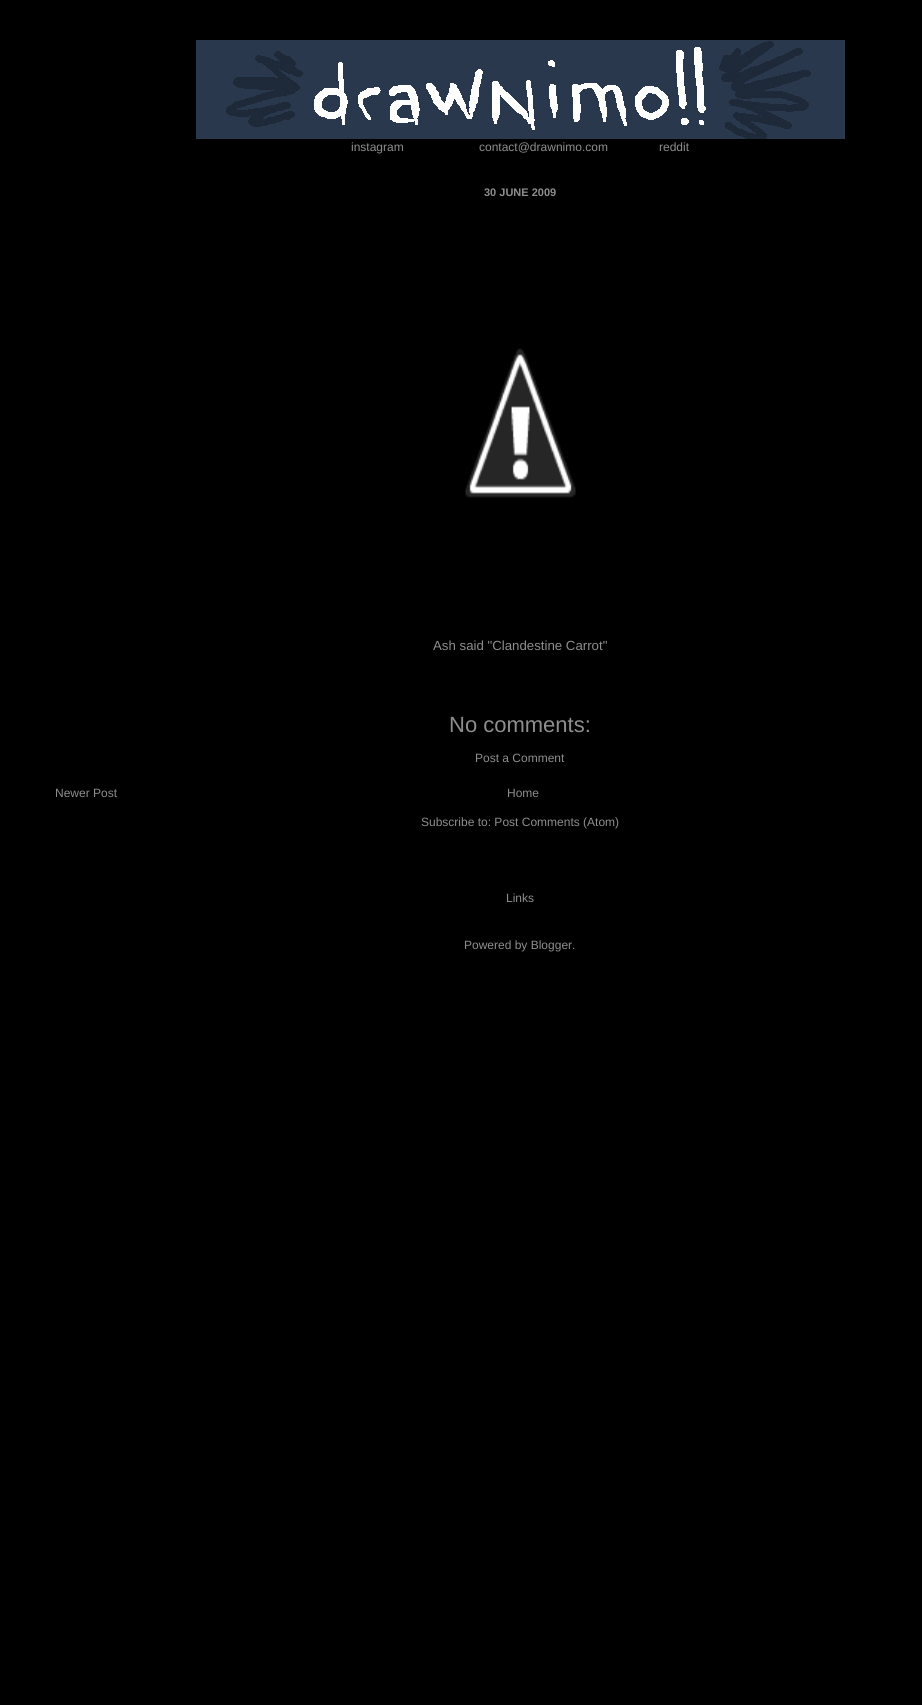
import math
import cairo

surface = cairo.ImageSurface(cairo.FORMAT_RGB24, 922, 1705)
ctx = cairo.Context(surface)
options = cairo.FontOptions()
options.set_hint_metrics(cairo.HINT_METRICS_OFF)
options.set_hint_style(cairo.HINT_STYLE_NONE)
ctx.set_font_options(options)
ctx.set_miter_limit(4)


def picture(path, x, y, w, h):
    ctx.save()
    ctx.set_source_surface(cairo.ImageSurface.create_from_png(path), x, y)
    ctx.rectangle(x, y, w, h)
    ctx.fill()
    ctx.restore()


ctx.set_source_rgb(0, 0, 0)
ctx.paint()
picture("img1.png", 196, 40, 649, 99)
ctx.select_font_face("Liberation Sans")
ctx.set_font_size(12)
ctx.set_source_rgb(0.557, 0.557, 0.557)
ctx.move_to(351, 151)
ctx.show_text("instagram")
ctx.move_to(479, 151)
ctx.show_text("contact@drawnimo.com")
ctx.move_to(659, 151)
ctx.show_text("reddit")
ctx.select_font_face("Liberation Sans", cairo.FONT_SLANT_NORMAL, cairo.FONT_WEIGHT_BOLD)
ctx.set_font_size(11)
ctx.move_to(484, 196)
ctx.show_text("30 JUNE 2009")
picture("img2.png", 465, 348, 111, 150)
ctx.select_font_face("Liberation Sans")
ctx.set_font_size(13.25)
ctx.move_to(433, 650)
ctx.show_text("Ash said \"Clandestine Carrot\"")
ctx.set_font_size(22)
ctx.move_to(449, 732)
ctx.show_text("No comments:")
ctx.set_font_size(12)
ctx.move_to(475, 762)
ctx.show_text("Post a Comment")
ctx.move_to(55, 797)
ctx.show_text("Newer Post")
ctx.move_to(507, 797)
ctx.show_text("Home")
ctx.move_to(421, 826)
ctx.show_text("Subscribe to: Post Comments (Atom)")
ctx.move_to(506, 902)
ctx.show_text("Links")
ctx.move_to(464, 949)
ctx.show_text("Powered by Blogger.")
surface.write_to_png("page.png")
